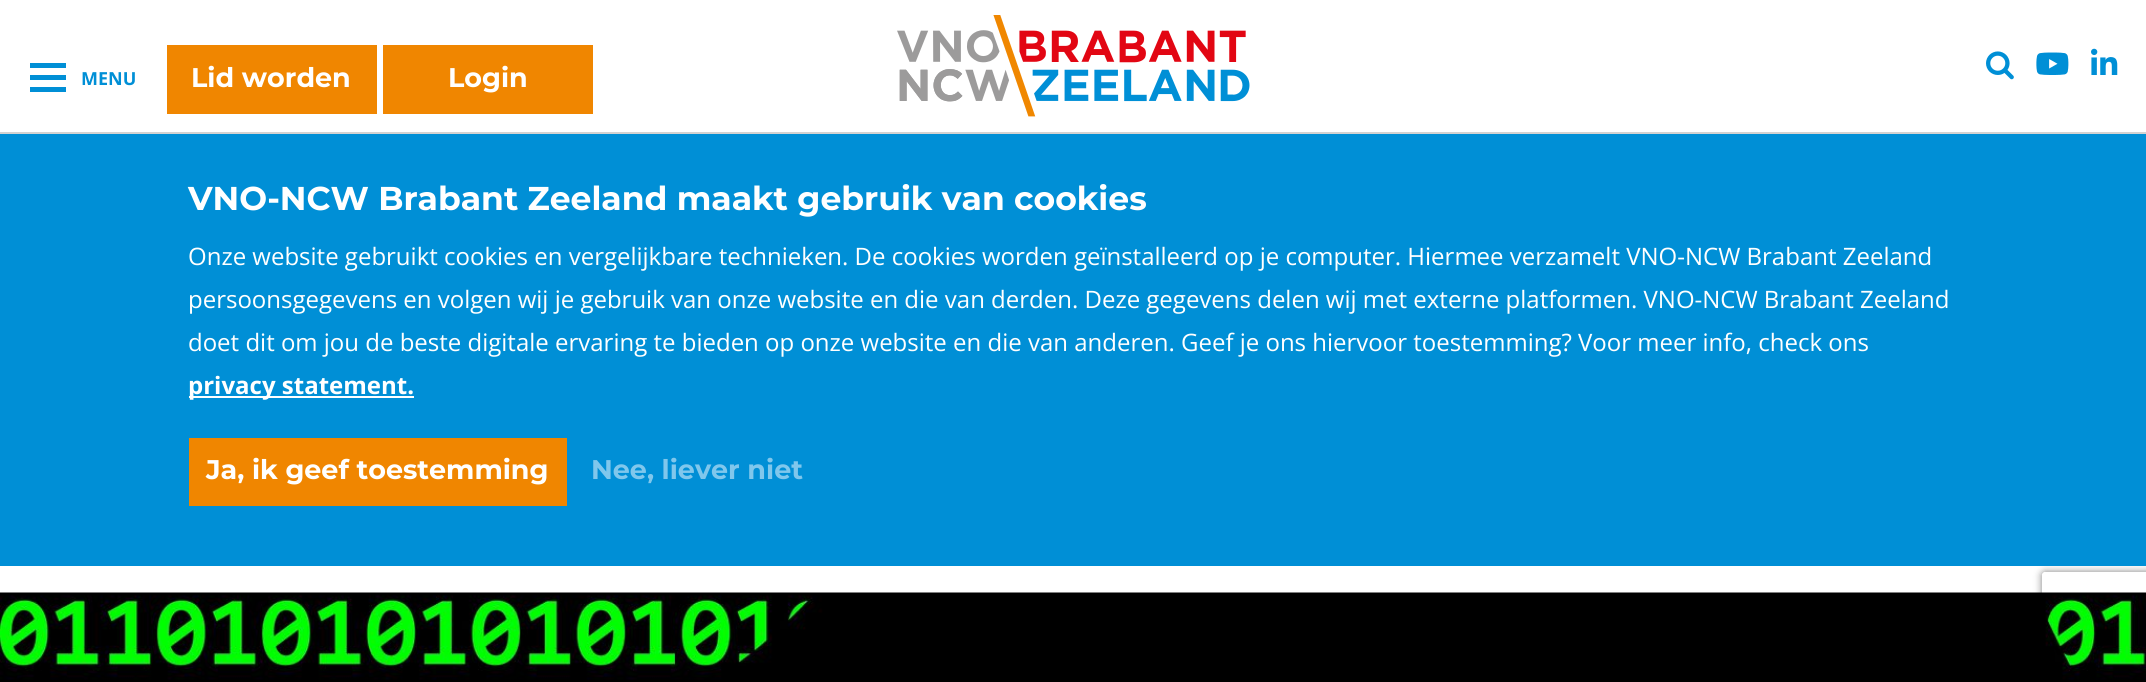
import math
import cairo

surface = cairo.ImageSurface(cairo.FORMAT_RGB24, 2146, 682)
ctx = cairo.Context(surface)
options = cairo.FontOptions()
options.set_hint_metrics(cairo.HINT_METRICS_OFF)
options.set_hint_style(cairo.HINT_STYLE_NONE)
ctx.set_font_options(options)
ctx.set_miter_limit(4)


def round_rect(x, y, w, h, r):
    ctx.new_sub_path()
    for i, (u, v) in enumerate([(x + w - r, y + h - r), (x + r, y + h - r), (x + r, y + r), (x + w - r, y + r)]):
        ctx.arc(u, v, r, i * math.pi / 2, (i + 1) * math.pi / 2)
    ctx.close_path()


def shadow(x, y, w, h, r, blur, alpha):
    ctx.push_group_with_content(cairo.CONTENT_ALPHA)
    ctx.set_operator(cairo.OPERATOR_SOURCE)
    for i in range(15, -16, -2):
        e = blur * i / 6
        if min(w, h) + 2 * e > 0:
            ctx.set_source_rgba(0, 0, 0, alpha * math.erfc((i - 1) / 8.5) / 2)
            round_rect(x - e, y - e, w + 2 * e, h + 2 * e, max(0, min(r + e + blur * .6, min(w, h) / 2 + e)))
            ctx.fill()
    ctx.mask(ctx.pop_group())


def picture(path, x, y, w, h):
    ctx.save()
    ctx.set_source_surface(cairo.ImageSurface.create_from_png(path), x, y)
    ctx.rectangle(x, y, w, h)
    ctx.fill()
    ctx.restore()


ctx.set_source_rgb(1, 1, 1)
ctx.paint()
ctx.set_source_rgb(0.824, 0.824, 0.824)
ctx.rectangle(0, 132, 2146, 2)
ctx.fill()
ctx.set_source_rgb(0, 0.561, 0.839)
ctx.rectangle(30, 75, 36, 5)
ctx.fill()
ctx.rectangle(30, 63, 36, 5)
ctx.fill()
ctx.rectangle(30, 87, 36, 5)
ctx.fill()
ctx.select_font_face("Open Sans", cairo.FONT_SLANT_NORMAL, cairo.FONT_WEIGHT_BOLD)
ctx.set_font_size(18)
ctx.move_to(81, 85)
ctx.show_text("MENU")
ctx.set_source_rgb(0.941, 0.525, 0)
ctx.rectangle(167, 45, 210, 69)
ctx.fill()
ctx.select_font_face("Montserrat", cairo.FONT_SLANT_NORMAL, cairo.FONT_WEIGHT_BOLD)
ctx.set_font_size(27)
ctx.set_source_rgb(1, 1, 1)
ctx.move_to(191, 87)
ctx.show_text("Lid worden")
ctx.set_source_rgb(0.941, 0.525, 0)
ctx.rectangle(383, 45, 210, 69)
ctx.fill()
ctx.set_source_rgb(1, 1, 1)
ctx.move_to(448, 87)
ctx.show_text("Login")
picture("img1.png", 897, 15, 353, 102)
picture("img2.png", 1986, 51, 28, 29)
picture("img3.png", 2036, 52, 33, 23)
picture("img4.png", 2091, 48, 27, 27)
ctx.save()
ctx.set_fill_rule(cairo.FILL_RULE_EVEN_ODD)
ctx.new_path()
ctx.move_to(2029, 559)
ctx.line_to(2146, 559)
ctx.line_to(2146, 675)
ctx.line_to(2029, 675)
ctx.close_path()
ctx.move_to(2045, 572)
ctx.line_to(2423, 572)
ctx.curve_to(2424.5, 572, 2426, 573.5, 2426, 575)
ctx.line_to(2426, 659)
ctx.curve_to(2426, 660.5, 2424.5, 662, 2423, 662)
ctx.line_to(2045, 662)
ctx.curve_to(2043.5, 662, 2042, 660.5, 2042, 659)
ctx.line_to(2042, 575)
ctx.curve_to(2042, 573.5, 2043.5, 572, 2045, 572)
ctx.close_path()
ctx.clip()
ctx.set_source_rgb(0.502, 0.502, 0.502)
shadow(2042, 572, 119, 90, 3, 4, 1)
ctx.restore()
ctx.set_source_rgb(0, 0.561, 0.839)
ctx.rectangle(0, 134, 2146, 432)
ctx.fill()
ctx.set_font_size(33)
ctx.set_source_rgb(1, 1, 1)
ctx.move_to(188, 210)
ctx.show_text("VNO-NCW Brabant Zeeland maakt gebruik van cookies")
ctx.select_font_face("Open Sans")
ctx.set_font_size(24)
ctx.move_to(188, 265)
ctx.show_text("Onze website gebruikt cookies en vergelijkbare technieken. De cookies worden geïnstalleerd op je computer. Hiermee verzamelt VNO-NCW Brabant Zeeland")
ctx.move_to(188, 308)
ctx.show_text("persoonsgegevens en volgen wij je gebruik van onze website en die van derden. Deze gegevens delen wij met externe platformen. VNO-NCW Brabant Zeeland")
ctx.move_to(188, 351)
ctx.show_text("doet dit om jou de beste digitale ervaring te bieden op onze website en die van anderen. Geef je ons hiervoor toestemming? Voor meer info, check ons")
ctx.rectangle(189, 396, 225, 2)
ctx.fill()
ctx.select_font_face("Open Sans", cairo.FONT_SLANT_NORMAL, cairo.FONT_WEIGHT_BOLD)
ctx.move_to(188, 394)
ctx.show_text("privacy statement.")
ctx.set_source_rgb(0.941, 0.525, 0)
ctx.rectangle(189, 438, 378, 68)
ctx.fill()
ctx.select_font_face("Montserrat", cairo.FONT_SLANT_NORMAL, cairo.FONT_WEIGHT_BOLD)
ctx.set_font_size(27)
ctx.set_source_rgb(1, 1, 1)
ctx.move_to(206, 479)
ctx.show_text("Ja, ik geef toestemming")
ctx.set_source_rgb(0.502, 0.78, 0.922)
ctx.move_to(591, 479)
ctx.show_text("Nee, liever niet")
picture("img5.png", 0, 592, 2146, 90)
surface.write_to_png("page.png")
